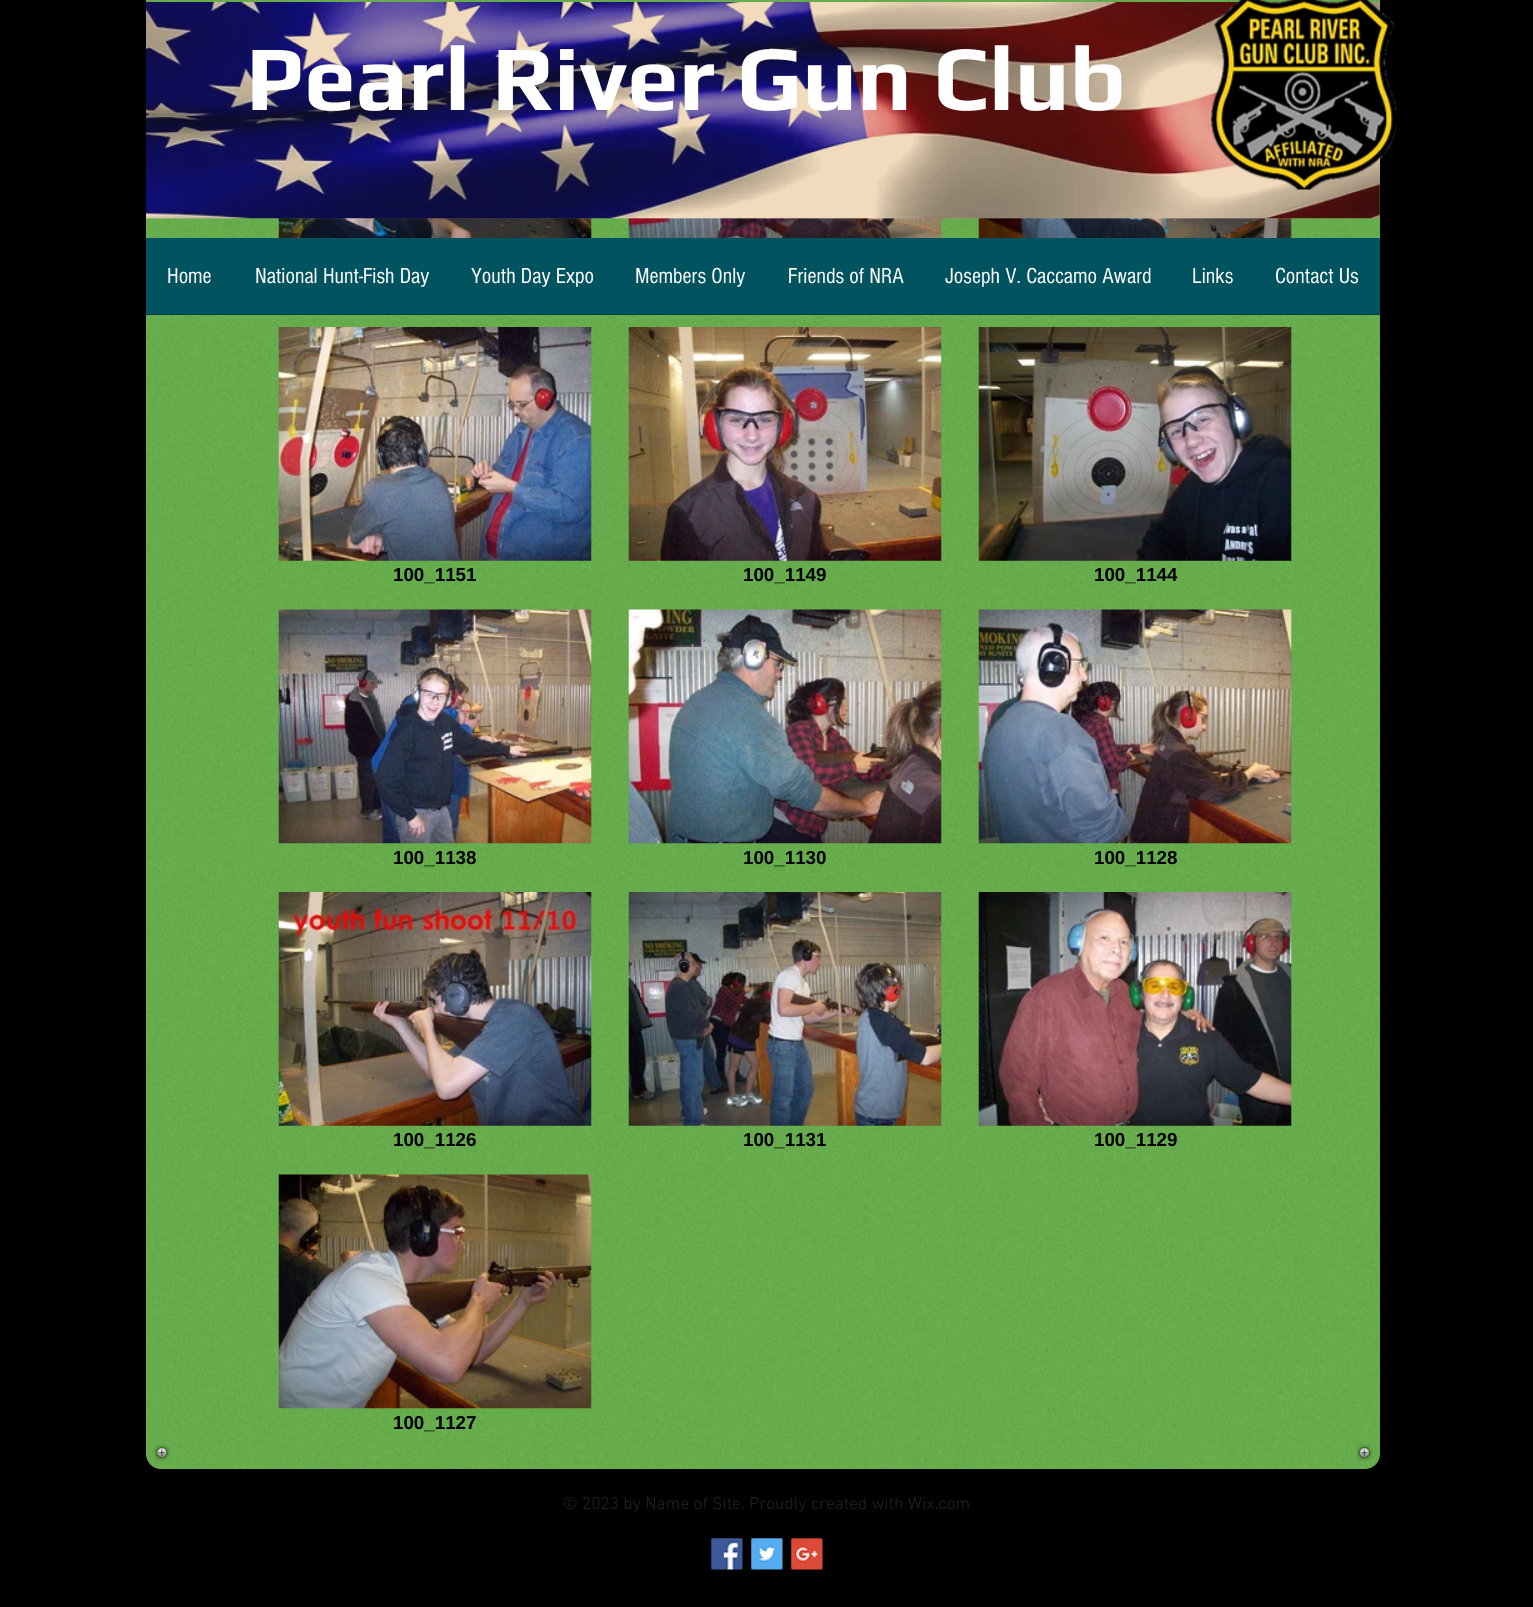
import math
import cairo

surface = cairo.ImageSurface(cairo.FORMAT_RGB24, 1533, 1607)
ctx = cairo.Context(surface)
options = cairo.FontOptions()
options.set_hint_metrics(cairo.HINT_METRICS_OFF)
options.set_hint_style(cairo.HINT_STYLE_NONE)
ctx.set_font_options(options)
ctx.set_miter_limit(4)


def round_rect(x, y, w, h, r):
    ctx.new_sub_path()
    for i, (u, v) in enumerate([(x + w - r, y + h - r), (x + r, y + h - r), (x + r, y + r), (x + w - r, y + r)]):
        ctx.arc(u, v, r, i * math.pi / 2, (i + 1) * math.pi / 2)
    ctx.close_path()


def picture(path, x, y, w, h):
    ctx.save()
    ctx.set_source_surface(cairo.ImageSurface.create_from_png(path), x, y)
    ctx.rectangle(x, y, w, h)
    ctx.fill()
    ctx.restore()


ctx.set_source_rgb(0, 0, 0)
ctx.paint()
ctx.set_source_rgb(0.408, 0.69, 0.302)
round_rect(146, -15, 1234, 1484, 15)
ctx.fill()
picture("img3.png", 146, 0, 1234, 1468)
picture("img4.png", 278, 218, 314, 20)
picture("img5.png", 628, 218, 314, 20)
picture("img6.png", 978, 218, 314, 20)
picture("img2.png", 146, 2, 1234, 217)
picture("img1.png", 1211, 0, 185, 190)
ctx.select_font_face("Play", cairo.FONT_SLANT_NORMAL, cairo.FONT_WEIGHT_BOLD)
ctx.set_font_size(92.5)
ctx.set_source_rgb(1, 1, 1)
ctx.move_to(246, 110)
ctx.show_text("Pearl River Gun Club")
ctx.set_source_rgb(0, 0.325, 0.373)
ctx.rectangle(146, 238, 1234, 76)
ctx.fill()
ctx.set_source_rgb(0, 0.247, 0.267)
ctx.rectangle(146, 314, 1234, 1)
ctx.fill()
ctx.select_font_face("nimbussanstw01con")
ctx.set_font_size(22.5)
ctx.set_source_rgb(1, 1, 1)
ctx.move_to(167, 283)
ctx.show_text("Home")
ctx.move_to(255, 283)
ctx.show_text("National Hunt-Fish Day")
ctx.move_to(471, 283)
ctx.show_text("Youth Day Expo")
ctx.move_to(635, 283)
ctx.show_text("Members Only")
ctx.move_to(788, 283)
ctx.show_text("Friends of NRA")
ctx.move_to(945, 283)
ctx.show_text("Joseph V. Caccamo Award")
ctx.move_to(1192, 283)
ctx.show_text("Links")
ctx.move_to(1275, 283)
ctx.show_text("Contact Us")
picture("img7.png", 278, 327, 314, 234)
ctx.select_font_face("Liberation Sans", cairo.FONT_SLANT_NORMAL, cairo.FONT_WEIGHT_BOLD)
ctx.set_font_size(18.75)
ctx.set_source_rgb(0, 0, 0)
ctx.move_to(393, 581)
ctx.show_text("100_1151")
picture("img8.png", 628, 327, 314, 234)
ctx.move_to(743, 581)
ctx.show_text("100_1149")
picture("img9.png", 978, 327, 314, 234)
ctx.move_to(1094, 581)
ctx.show_text("100_1144")
picture("img10.png", 278, 609, 314, 235)
ctx.move_to(393, 864)
ctx.show_text("100_1138")
picture("img11.png", 628, 609, 314, 235)
ctx.move_to(743, 864)
ctx.show_text("100_1130")
picture("img12.png", 978, 609, 314, 235)
ctx.move_to(1094, 864)
ctx.show_text("100_1128")
picture("img13.png", 278, 892, 314, 234)
ctx.move_to(393, 1146)
ctx.show_text("100_1126")
picture("img14.png", 628, 892, 314, 234)
ctx.move_to(743, 1146)
ctx.show_text("100_1131")
picture("img15.png", 978, 892, 314, 234)
ctx.move_to(1094, 1146)
ctx.show_text("100_1129")
picture("img16.png", 278, 1174, 314, 235)
ctx.move_to(393, 1429)
ctx.show_text("100_1127")
picture("img17.png", 153, 1444, 18, 17)
picture("img18.png", 1356, 1444, 17, 17)
ctx.select_font_face("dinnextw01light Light")
ctx.set_font_size(17.5)
ctx.set_source_rgb(0.137, 0.137, 0.137)
ctx.move_to(563, 1509)
ctx.show_text("© 2023 by Name of Site. Proudly created with Wix.com")
picture("img19.png", 711, 1538, 32, 32)
picture("img20.png", 751, 1538, 32, 32)
picture("img21.png", 791, 1538, 32, 32)
surface.write_to_png("page.png")
